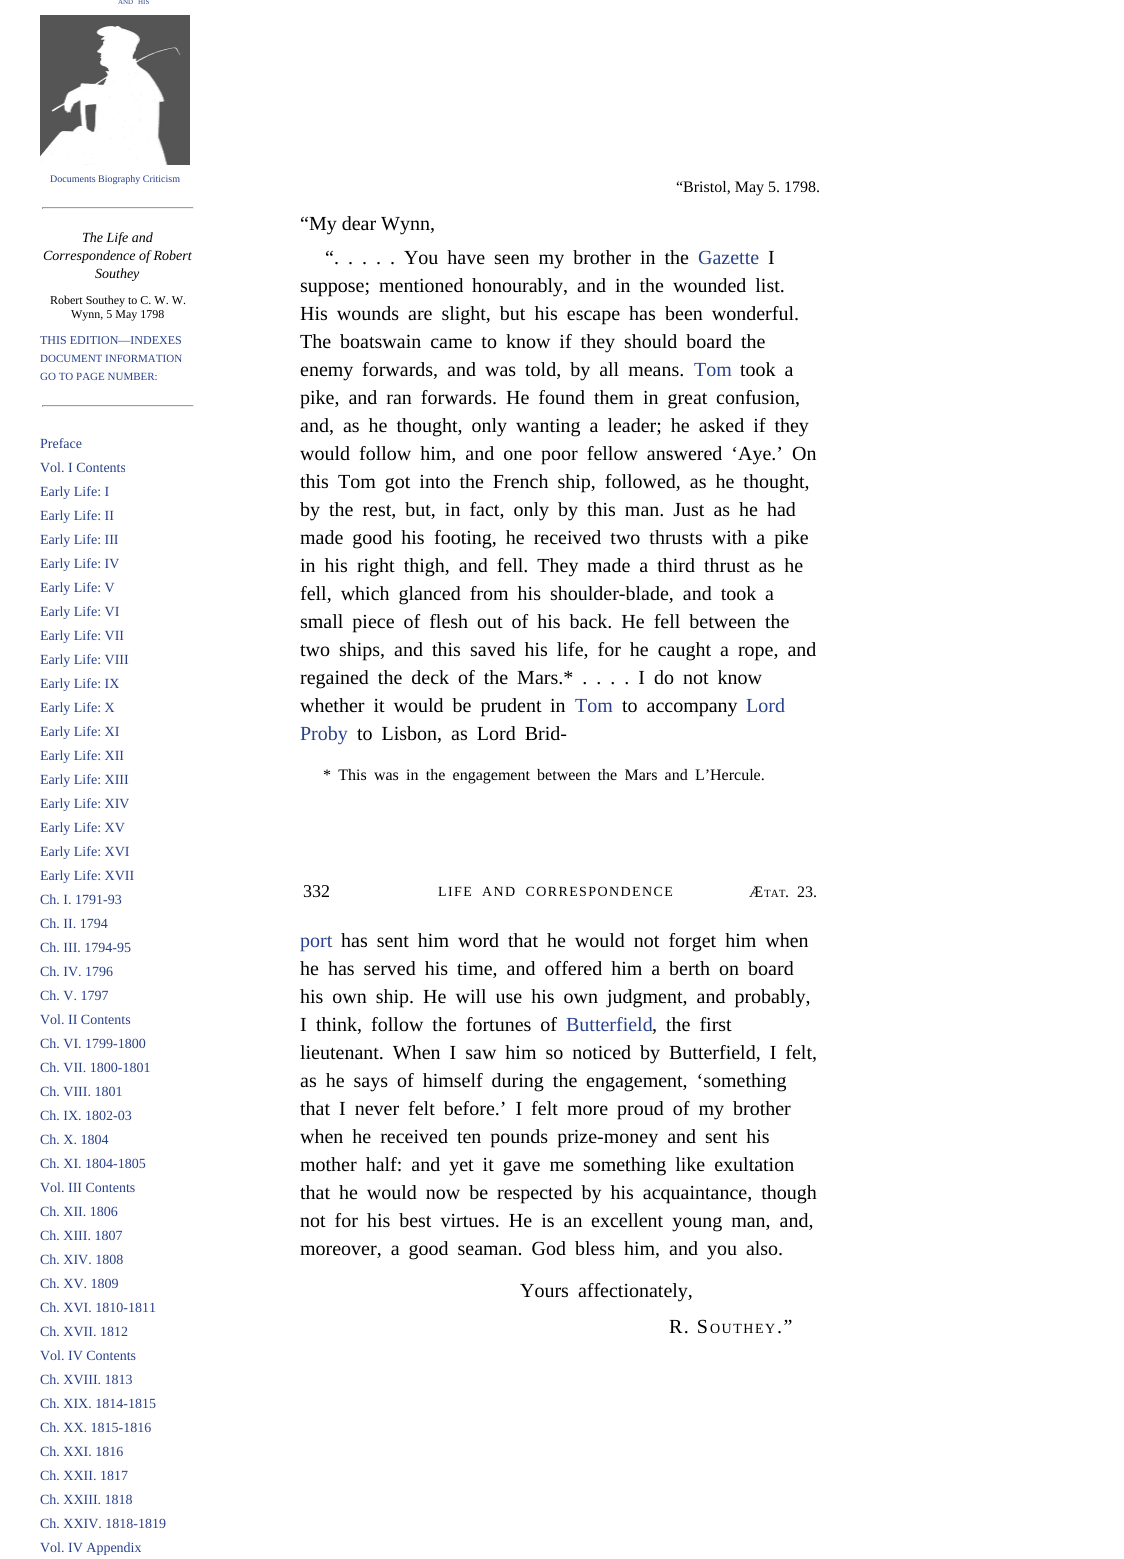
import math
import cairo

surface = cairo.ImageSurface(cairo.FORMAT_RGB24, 1124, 1559)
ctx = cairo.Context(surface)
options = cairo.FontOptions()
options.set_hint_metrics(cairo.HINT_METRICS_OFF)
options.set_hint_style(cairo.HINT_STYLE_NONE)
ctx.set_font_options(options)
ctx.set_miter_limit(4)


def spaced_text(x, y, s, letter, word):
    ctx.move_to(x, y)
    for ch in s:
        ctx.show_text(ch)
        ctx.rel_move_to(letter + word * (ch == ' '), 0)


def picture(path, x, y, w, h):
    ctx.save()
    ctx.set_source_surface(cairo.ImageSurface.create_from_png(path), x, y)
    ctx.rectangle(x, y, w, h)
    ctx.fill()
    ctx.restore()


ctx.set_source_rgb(1, 1, 1)
ctx.paint()
ctx.select_font_face("Liberation Serif")
ctx.set_font_size(7)
ctx.set_source_rgb(0.153, 0.251, 0.545)
ctx.move_to(118, 4)
ctx.show_text("AND")
ctx.move_to(138, 4)
ctx.show_text("HIS")
picture("img1.png", 40, 15, 150, 150)
ctx.set_font_size(10)
ctx.move_to(50, 182)
ctx.show_text("Documents Biography Criticism")
ctx.set_font_size(16)
ctx.set_source_rgb(0, 0, 0)
ctx.move_to(676, 192)
ctx.show_text("“Bristol, May 5. 1798.")
ctx.set_font_size(20)
ctx.move_to(300, 230)
ctx.show_text("“My dear Wynn,")
ctx.set_source_rgb(0.624, 0.624, 0.624)
ctx.rectangle(42, 207, 152, 1)
ctx.fill()
ctx.set_source_rgb(0.933, 0.933, 0.933)
ctx.rectangle(193, 207, 1, 2)
ctx.fill()
ctx.rectangle(42, 208, 152, 1)
ctx.fill()
ctx.set_source_rgb(0.624, 0.624, 0.624)
ctx.rectangle(42, 207, 1, 2)
ctx.fill()
ctx.select_font_face("Liberation Serif", cairo.FONT_SLANT_ITALIC)
ctx.set_font_size(14)
ctx.set_source_rgb(0, 0, 0)
ctx.move_to(82, 242)
ctx.show_text("The Life and")
ctx.move_to(43, 260)
ctx.show_text("Correspondence of Robert")
ctx.move_to(95, 278)
ctx.show_text("Southey")
ctx.select_font_face("Liberation Serif")
ctx.set_font_size(12)
ctx.move_to(50, 304)
ctx.show_text("Robert Southey to C. W. W.")
ctx.move_to(71, 318)
ctx.show_text("Wynn, 5 May 1798")
ctx.set_source_rgb(0.153, 0.251, 0.545)
ctx.move_to(40, 344)
ctx.show_text("THIS EDITION—INDEXES")
ctx.set_font_size(11)
ctx.move_to(40, 362)
ctx.show_text("DOCUMENT INFORMATION")
ctx.move_to(40, 380)
ctx.show_text("GO TO PAGE NUMBER:")
ctx.set_source_rgb(0.624, 0.624, 0.624)
ctx.rectangle(42, 405, 152, 1)
ctx.fill()
ctx.set_source_rgb(0.933, 0.933, 0.933)
ctx.rectangle(193, 405, 1, 2)
ctx.fill()
ctx.rectangle(42, 406, 152, 1)
ctx.fill()
ctx.set_source_rgb(0.624, 0.624, 0.624)
ctx.rectangle(42, 405, 1, 2)
ctx.fill()
ctx.set_font_size(14)
ctx.set_source_rgb(0.153, 0.251, 0.545)
ctx.move_to(40, 448)
ctx.show_text("Preface")
ctx.move_to(40, 472)
ctx.show_text("Vol. I Contents")
ctx.move_to(40, 496)
ctx.show_text("Early Life: I")
ctx.move_to(40, 520)
ctx.show_text("Early Life: II")
ctx.move_to(40, 544)
ctx.show_text("Early Life: III")
ctx.move_to(40, 568)
ctx.show_text("Early Life: IV")
ctx.move_to(40, 592)
ctx.show_text("Early Life: V")
ctx.move_to(40, 616)
ctx.show_text("Early Life: VI")
ctx.move_to(40, 640)
ctx.show_text("Early Life: VII")
ctx.move_to(40, 664)
ctx.show_text("Early Life: VIII")
ctx.move_to(40, 688)
ctx.show_text("Early Life: IX")
ctx.move_to(40, 712)
ctx.show_text("Early Life: X")
ctx.move_to(40, 736)
ctx.show_text("Early Life: XI")
ctx.move_to(40, 760)
ctx.show_text("Early Life: XII")
ctx.move_to(40, 784)
ctx.show_text("Early Life: XIII")
ctx.move_to(40, 808)
ctx.show_text("Early Life: XIV")
ctx.move_to(40, 832)
ctx.show_text("Early Life: XV")
ctx.move_to(40, 856)
ctx.show_text("Early Life: XVI")
ctx.move_to(40, 880)
ctx.show_text("Early Life: XVII")
ctx.move_to(40, 904)
ctx.show_text("Ch. I. 1791-93")
ctx.move_to(40, 928)
ctx.show_text("Ch. II. 1794")
ctx.move_to(40, 952)
ctx.show_text("Ch. III. 1794-95")
ctx.move_to(40, 976)
ctx.show_text("Ch. IV. 1796")
ctx.move_to(40, 1000)
ctx.show_text("Ch. V. 1797")
ctx.move_to(40, 1024)
ctx.show_text("Vol. II Contents")
ctx.move_to(40, 1048)
ctx.show_text("Ch. VI. 1799-1800")
ctx.move_to(40, 1072)
ctx.show_text("Ch. VII. 1800-1801")
ctx.move_to(40, 1096)
ctx.show_text("Ch. VIII. 1801")
ctx.move_to(40, 1120)
ctx.show_text("Ch. IX. 1802-03")
ctx.move_to(40, 1144)
ctx.show_text("Ch. X. 1804")
ctx.move_to(40, 1168)
ctx.show_text("Ch. XI. 1804-1805")
ctx.move_to(40, 1192)
ctx.show_text("Vol. III Contents")
ctx.move_to(40, 1216)
ctx.show_text("Ch. XII. 1806")
ctx.move_to(40, 1240)
ctx.show_text("Ch. XIII. 1807")
ctx.move_to(40, 1264)
ctx.show_text("Ch. XIV. 1808")
ctx.move_to(40, 1288)
ctx.show_text("Ch. XV. 1809")
ctx.move_to(40, 1312)
ctx.show_text("Ch. XVI. 1810-1811")
ctx.move_to(40, 1336)
ctx.show_text("Ch. XVII. 1812")
ctx.move_to(40, 1360)
ctx.show_text("Vol. IV Contents")
ctx.move_to(40, 1384)
ctx.show_text("Ch. XVIII. 1813")
ctx.move_to(40, 1408)
ctx.show_text("Ch. XIX. 1814-1815")
ctx.move_to(40, 1432)
ctx.show_text("Ch. XX. 1815-1816")
ctx.move_to(40, 1456)
ctx.show_text("Ch. XXI. 1816")
ctx.move_to(40, 1480)
ctx.show_text("Ch. XXII. 1817")
ctx.move_to(40, 1504)
ctx.show_text("Ch. XXIII. 1818")
ctx.move_to(40, 1528)
ctx.show_text("Ch. XXIV. 1818-1819")
ctx.move_to(40, 1552)
ctx.show_text("Vol. IV Appendix")
ctx.set_font_size(20)
ctx.set_source_rgb(0, 0, 0)
spaced_text(325, 264, "“. . . . . You have seen my brother in the", 0, 4)
ctx.set_source_rgb(0.153, 0.251, 0.545)
ctx.move_to(698, 264)
ctx.show_text("Gazette")
ctx.set_source_rgb(0, 0, 0)
ctx.move_to(768, 264)
ctx.show_text("I")
spaced_text(300, 292, "suppose; mentioned", 0, 4)
spaced_text(472, 292, "honourably, and in the wounded list.", 0, 4)
spaced_text(300, 320, "His wounds are slight, but his escape has", 0, 4)
spaced_text(665, 320, "been wonderful.", 0, 4)
spaced_text(300, 348, "The boatswain came to know if they should board the", 0, 4)
ctx.move_to(300, 376)
ctx.show_text("enemy")
spaced_text(362, 376, "forwards, and was told, by all means.", 0, 4)
ctx.set_source_rgb(0.153, 0.251, 0.545)
ctx.move_to(694, 376)
ctx.show_text("Tom")
ctx.set_source_rgb(0, 0, 0)
spaced_text(740, 376, "took a", 0, 4)
spaced_text(300, 404, "pike, and ran forwards. He found them in great", 0, 4)
ctx.move_to(716, 404)
ctx.show_text("confusion,")
spaced_text(300, 432, "and, as he thought, only wanting a leader; he asked if they", 0, 4)
ctx.move_to(300, 460)
ctx.show_text("would")
spaced_text(359, 460, "follow him, and one poor fellow answered ‘Aye.’ On", 0, 4)
ctx.move_to(300, 488)
ctx.show_text("this")
spaced_text(338, 488, "Tom got into the French ship, followed, as he thought,", 0, 4)
spaced_text(300, 516, "by the rest, but, in fact, only by this man. Just as he had", 0, 4)
spaced_text(300, 544, "made good his", 0, 4)
spaced_text(434, 544, "footing, he received two thrusts with a pike", 0, 4)
spaced_text(300, 572, "in his right thigh, and fell. They", 0, 4)
spaced_text(587, 572, "made a third thrust as he", 0, 4)
spaced_text(300, 600, "fell, which glanced from his shoulder-blade, and took", 0, 4)
ctx.move_to(765, 600)
ctx.show_text("a")
spaced_text(300, 628, "small piece of flesh out of his back. He fell between the", 0, 4)
spaced_text(300, 656, "two ships, and this", 0, 4)
spaced_text(470, 656, "saved his life, for he caught a rope, and", 0, 4)
spaced_text(300, 684, "regained the deck of the Mars.* . . . . I do not know", 0, 4)
spaced_text(300, 712, "whether it would be prudent", 0, 4)
ctx.move_to(550, 712)
ctx.show_text("in")
ctx.set_source_rgb(0.153, 0.251, 0.545)
ctx.move_to(575, 712)
ctx.show_text("Tom")
ctx.set_source_rgb(0, 0, 0)
spaced_text(622, 712, "to accompany", 0, 4)
ctx.set_source_rgb(0.153, 0.251, 0.545)
ctx.move_to(746, 712)
ctx.show_text("Lord")
ctx.move_to(300, 740)
ctx.show_text("Proby")
ctx.set_source_rgb(0, 0, 0)
spaced_text(357, 740, "to Lisbon, as Lord Brid-", 0, 4)
ctx.set_font_size(16)
spaced_text(323, 780, "* This was in the engagement between the Mars and L’Hercule.", 0, 3.25)
ctx.set_font_size(18)
ctx.move_to(303, 897)
ctx.show_text("332")
ctx.set_font_size(14)
spaced_text(438, 896, "LIFE AND CORRESPONDENCE", 1.4, 4)
ctx.set_font_size(16)
ctx.move_to(749, 897)
ctx.show_text("Æ")
ctx.set_font_size(11)
ctx.move_to(764, 897)
ctx.show_text("TAT")
ctx.set_font_size(16)
spaced_text(785, 897, ". 23.", 0, 4)
ctx.set_font_size(20)
ctx.set_source_rgb(0.153, 0.251, 0.545)
ctx.move_to(300, 947)
ctx.show_text("port")
ctx.set_source_rgb(0, 0, 0)
spaced_text(341, 947, "has sent him word", 0, 4)
spaced_text(508, 947, "that he would not forget him when", 0, 4)
spaced_text(300, 975, "he has served his time, and offered him a", 0, 4)
spaced_text(669, 975, "berth on board", 0, 4)
spaced_text(300, 1003, "his own ship. He will use his own judgment, and probably,", 0, 4)
ctx.move_to(300, 1031)
ctx.show_text("I")
spaced_text(316, 1031, "think, follow the fortunes of", 0, 4)
ctx.set_source_rgb(0.153, 0.251, 0.545)
ctx.move_to(566, 1031)
ctx.show_text("Butterfield")
ctx.set_source_rgb(0, 0, 0)
spaced_text(652, 1031, ", the first", 0, 4)
spaced_text(300, 1059, "lieutenant. When I saw him so noticed by", 0, 4)
spaced_text(669, 1059, "Butterfield, I felt,", 0, 4)
spaced_text(300, 1087, "as he says of himself during the", 0, 4)
spaced_text(586, 1087, "engagement, ‘something", 0, 4)
spaced_text(300, 1115, "that I never felt before.’ I felt", 0, 4)
spaced_text(567, 1115, "more proud of my brother", 0, 4)
spaced_text(300, 1143, "when he received ten pounds prize-money and sent his", 0, 4)
spaced_text(300, 1171, "mother half: and yet it gave me something like exultation", 0, 4)
spaced_text(300, 1199, "that he would now be", 0, 4)
spaced_text(497, 1199, "respected by his acquaintance, though", 0, 4)
spaced_text(300, 1227, "not for his best virtues. He is an", 0, 4)
spaced_text(591, 1227, "excellent young man, and,", 0, 4)
spaced_text(300, 1255, "moreover, a good seaman. God bless him, and you also.", 0, 4)
spaced_text(520, 1297, "Yours affectionately,", 0, 4)
spaced_text(669, 1333, "R. S", 1.5, 0)
ctx.set_font_size(14)
spaced_text(710, 1333, "OUTHEY", 1.5, 0)
ctx.set_font_size(20)
spaced_text(777, 1333, ".”", 1.5, 0)
surface.write_to_png("page.png")
